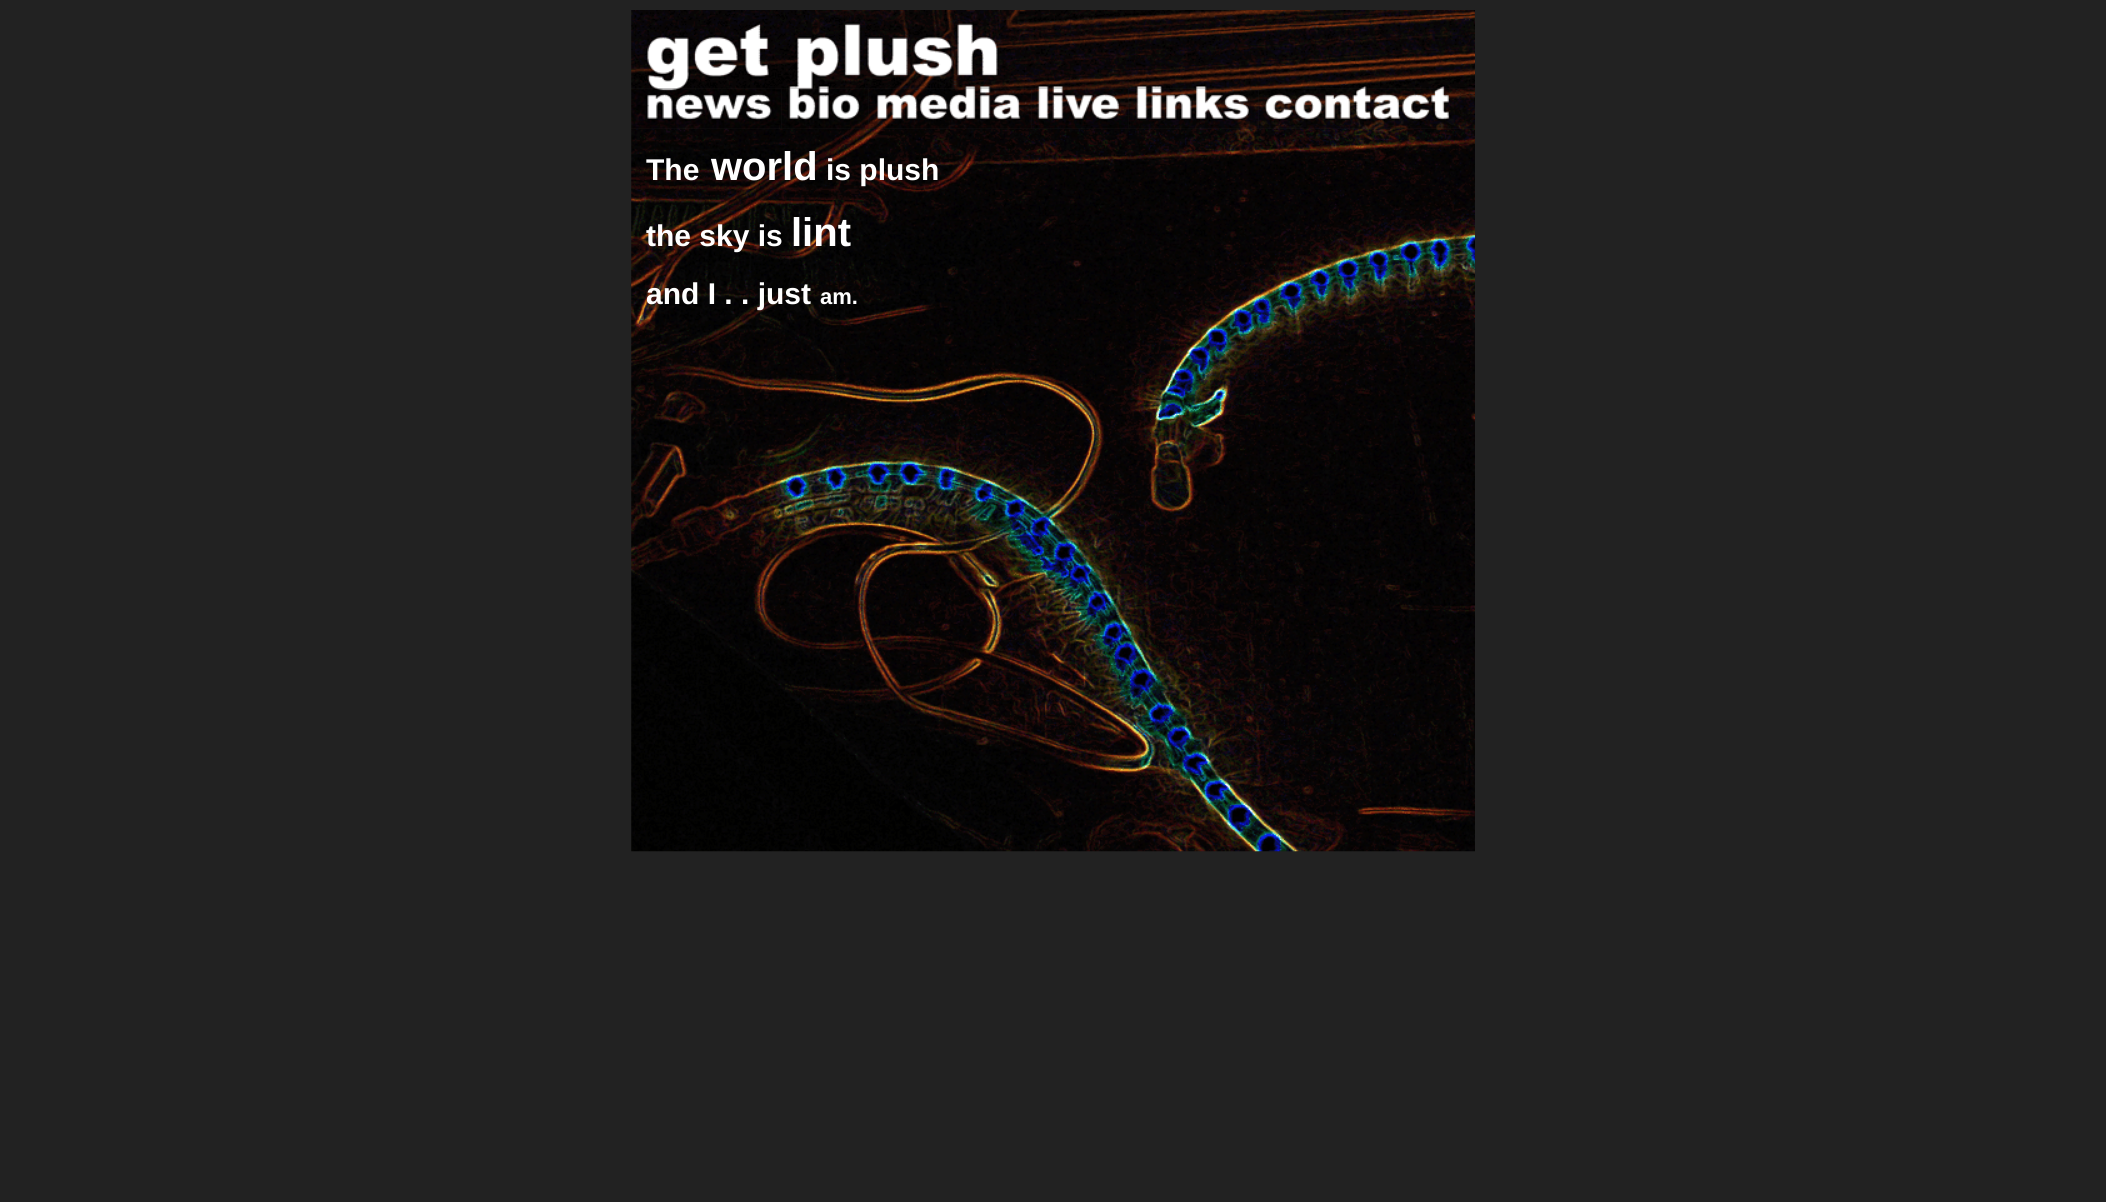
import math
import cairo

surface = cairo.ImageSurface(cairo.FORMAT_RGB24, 2106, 1202)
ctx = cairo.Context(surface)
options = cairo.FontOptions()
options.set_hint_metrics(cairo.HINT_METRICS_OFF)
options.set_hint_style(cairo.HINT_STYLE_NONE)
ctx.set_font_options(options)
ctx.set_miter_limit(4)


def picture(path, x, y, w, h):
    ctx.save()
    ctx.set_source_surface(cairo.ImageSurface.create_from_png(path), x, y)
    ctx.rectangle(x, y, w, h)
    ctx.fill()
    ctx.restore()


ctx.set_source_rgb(0.133, 0.133, 0.133)
ctx.paint()
picture("img1.png", 631, 10, 844, 79)
picture("img8.png", 631, 128, 844, 724)
picture("img2.png", 631, 88, 151, 41)
picture("img3.png", 781, 88, 88, 41)
picture("img4.png", 868, 88, 164, 41)
picture("img5.png", 1031, 88, 98, 41)
picture("img6.png", 1128, 88, 131, 41)
picture("img7.png", 1258, 88, 217, 41)
ctx.select_font_face("Liberation Sans", cairo.FONT_SLANT_NORMAL, cairo.FONT_WEIGHT_BOLD)
ctx.set_font_size(30)
ctx.set_source_rgb(1, 1, 1)
ctx.move_to(646, 180)
ctx.show_text("The")
ctx.set_font_size(40)
ctx.move_to(711, 180)
ctx.show_text("world")
ctx.set_font_size(30)
ctx.move_to(826, 180)
ctx.show_text("is plush")
ctx.move_to(646, 246)
ctx.show_text("the sky is")
ctx.set_font_size(40)
ctx.move_to(791, 246)
ctx.show_text("lint")
ctx.set_font_size(30)
ctx.move_to(646, 304)
ctx.show_text("and I . . just")
ctx.set_font_size(22)
ctx.move_to(820, 304)
ctx.show_text("am.")
surface.write_to_png("page.png")
